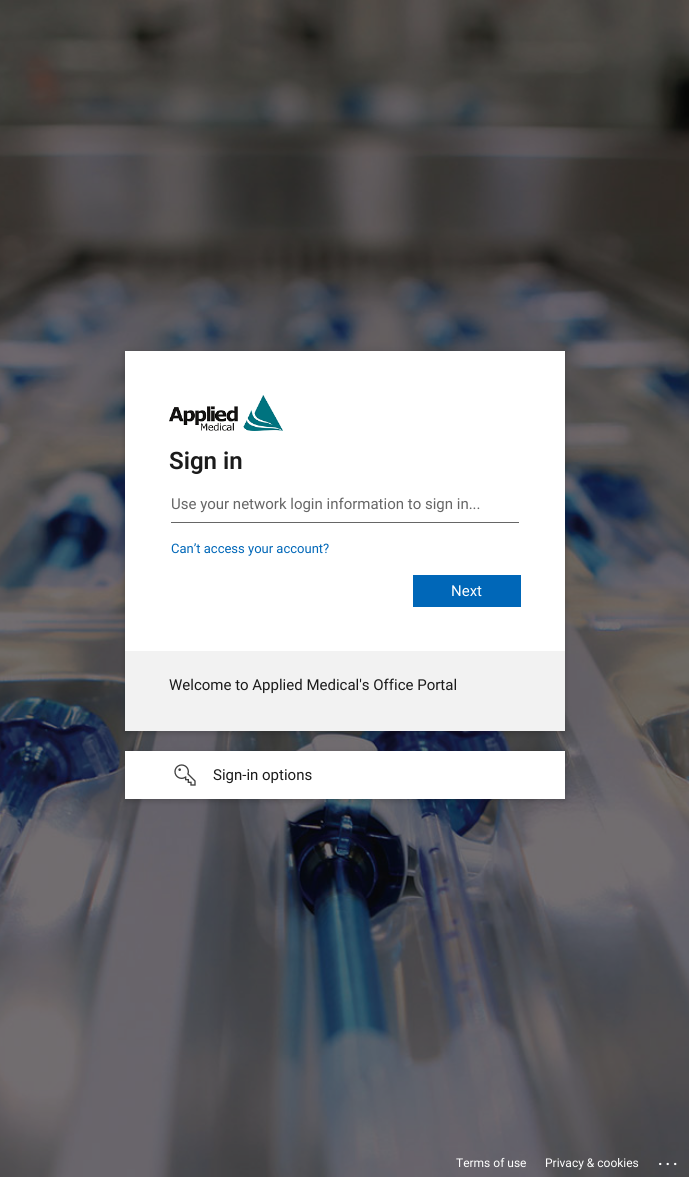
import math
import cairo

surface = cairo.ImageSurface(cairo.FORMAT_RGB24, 689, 1177)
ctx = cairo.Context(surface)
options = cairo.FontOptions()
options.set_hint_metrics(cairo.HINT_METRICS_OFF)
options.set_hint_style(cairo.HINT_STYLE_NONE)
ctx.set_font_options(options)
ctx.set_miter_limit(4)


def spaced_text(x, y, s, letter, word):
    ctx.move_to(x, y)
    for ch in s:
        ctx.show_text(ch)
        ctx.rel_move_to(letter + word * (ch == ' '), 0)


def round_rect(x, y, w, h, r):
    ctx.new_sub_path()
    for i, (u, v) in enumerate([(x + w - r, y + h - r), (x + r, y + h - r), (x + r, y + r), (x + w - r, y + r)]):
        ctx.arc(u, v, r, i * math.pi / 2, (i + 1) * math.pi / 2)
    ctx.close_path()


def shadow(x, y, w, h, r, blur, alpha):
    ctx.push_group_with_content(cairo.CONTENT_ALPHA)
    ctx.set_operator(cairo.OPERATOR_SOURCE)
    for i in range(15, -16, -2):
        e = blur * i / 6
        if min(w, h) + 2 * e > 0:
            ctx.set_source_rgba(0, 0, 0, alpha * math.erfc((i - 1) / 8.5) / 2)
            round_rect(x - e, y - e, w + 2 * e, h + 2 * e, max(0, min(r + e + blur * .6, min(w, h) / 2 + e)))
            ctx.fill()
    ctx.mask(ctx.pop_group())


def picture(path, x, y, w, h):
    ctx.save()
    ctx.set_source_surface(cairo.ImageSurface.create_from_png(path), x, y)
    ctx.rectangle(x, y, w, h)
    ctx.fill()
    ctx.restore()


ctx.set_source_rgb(1, 1, 1)
ctx.paint()
picture("img1.png", 0, 0, 689, 1177)
ctx.set_source_rgb(0, 0, 0)
shadow(125, 353, 440, 380, 0, 3, 0.2)
ctx.set_source_rgb(1, 1, 1)
ctx.rectangle(125, 351, 440, 300)
ctx.fill()
picture("img2.png", 169, 395, 114, 36)
ctx.select_font_face("Roboto SemiBold")
ctx.set_font_size(24)
ctx.set_source_rgb(0.106, 0.106, 0.106)
ctx.move_to(169, 469)
ctx.show_text("Sign in")
ctx.set_source_rgb(0.4, 0.4, 0.4)
ctx.rectangle(171, 522, 348, 1)
ctx.fill()
ctx.select_font_face("Roboto")
ctx.set_font_size(15)
ctx.move_to(171, 509)
ctx.show_text("Use your network login information to sign in...")
ctx.set_font_size(13)
ctx.set_source_rgb(0, 0.404, 0.722)
ctx.move_to(171, 553)
ctx.show_text("Can’t access your account?")
ctx.rectangle(413, 575, 108, 32)
ctx.fill()
ctx.set_font_size(15)
ctx.set_source_rgb(1, 1, 1)
ctx.move_to(451, 596)
ctx.show_text("Next")
ctx.set_source_rgb(0.949, 0.949, 0.949)
ctx.rectangle(125, 651, 440, 80)
ctx.fill()
ctx.set_source_rgb(0.106, 0.106, 0.106)
ctx.move_to(169, 690)
ctx.show_text("Welcome to Applied Medical's Office Portal")
ctx.set_source_rgb(0, 0, 0)
shadow(125, 753, 440, 48, 0, 3, 0.2)
ctx.set_source_rgb(1, 1, 1)
ctx.rectangle(125, 751, 440, 48)
ctx.fill()
picture("img3.png", 174, 764, 22, 22)
ctx.set_source_rgb(0.106, 0.106, 0.106)
ctx.move_to(213, 780)
ctx.show_text("Sign-in options")
ctx.set_font_size(12)
ctx.set_source_rgb(1, 1, 1)
ctx.move_to(456, 1167)
ctx.show_text("Terms of use")
ctx.move_to(545, 1167)
ctx.show_text("Privacy & cookies")
ctx.select_font_face("Roboto SemiBold")
ctx.set_font_size(16)
spaced_text(658, 1165, "...", 3, 0)
surface.write_to_png("page.png")
